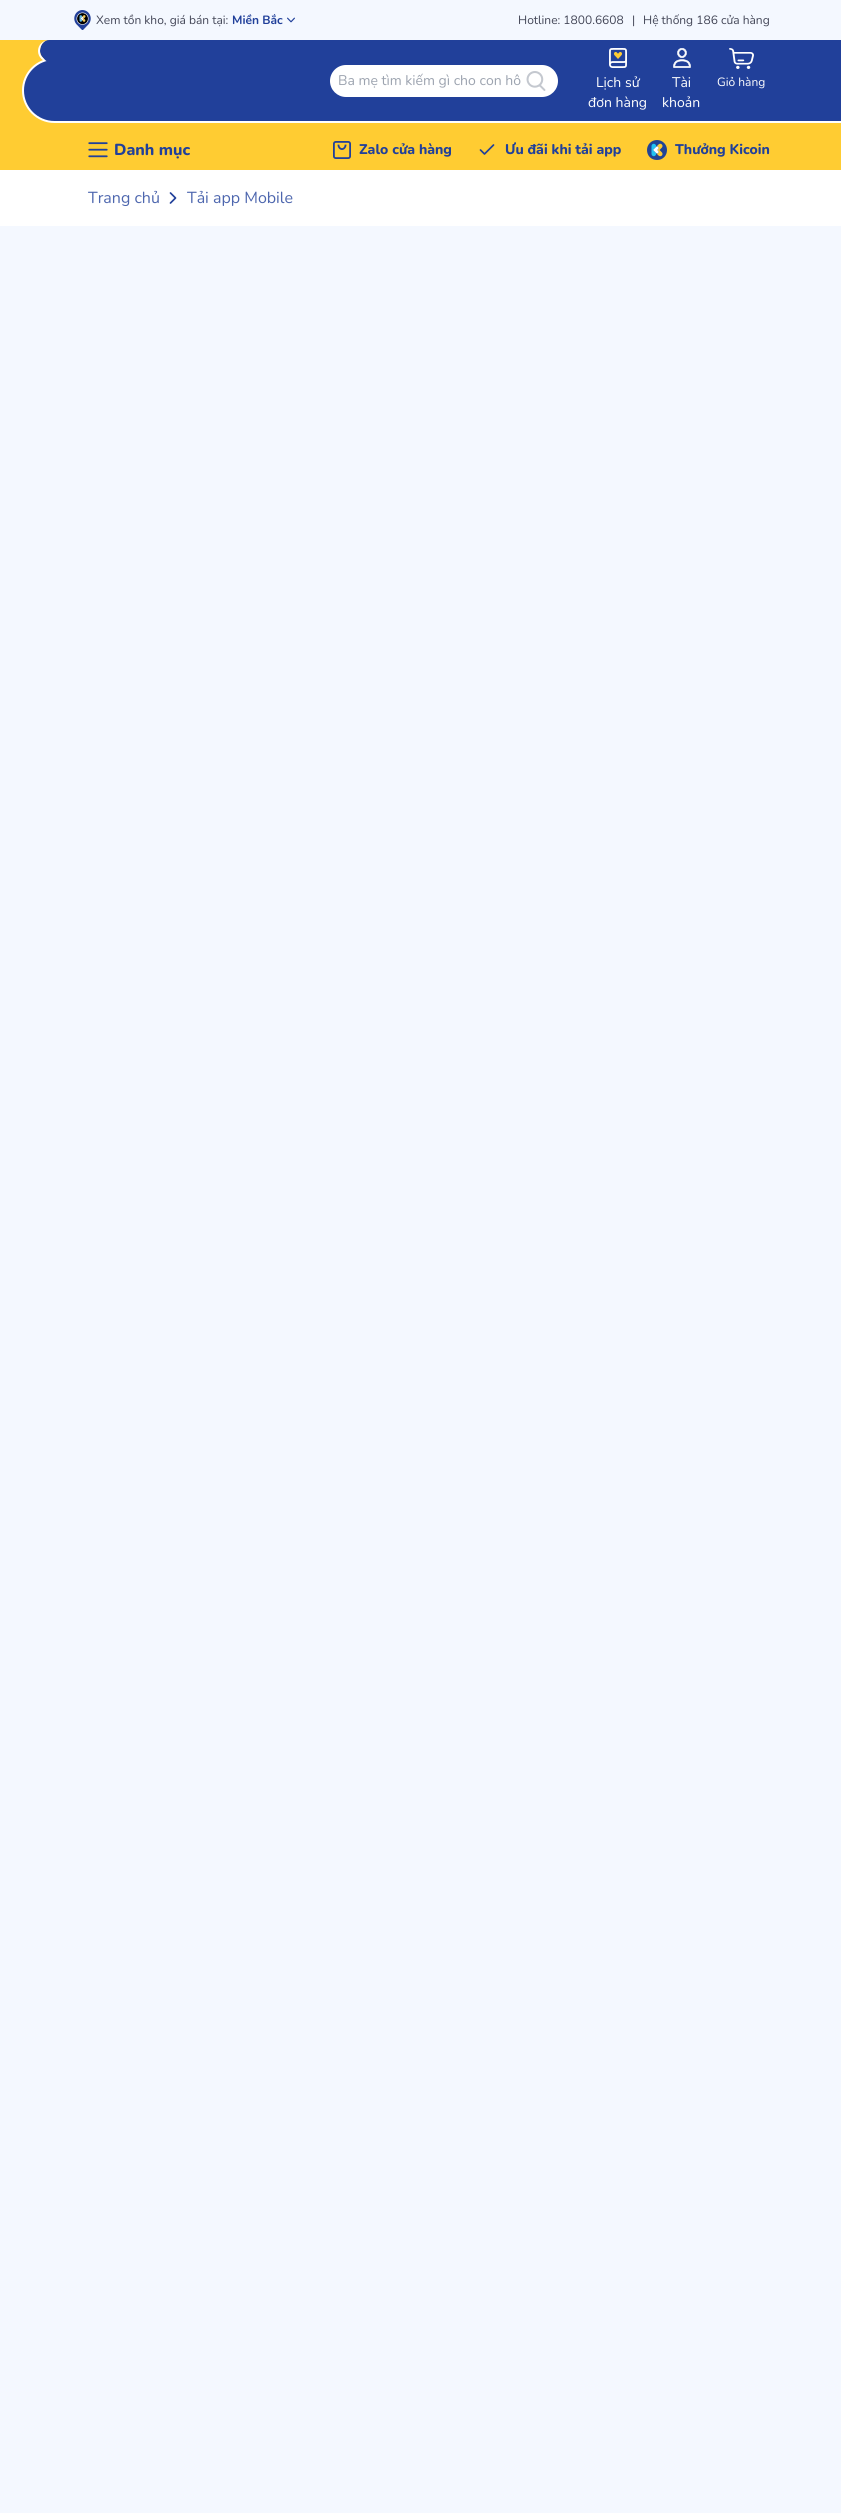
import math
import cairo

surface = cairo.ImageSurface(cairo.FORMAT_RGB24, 841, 2513)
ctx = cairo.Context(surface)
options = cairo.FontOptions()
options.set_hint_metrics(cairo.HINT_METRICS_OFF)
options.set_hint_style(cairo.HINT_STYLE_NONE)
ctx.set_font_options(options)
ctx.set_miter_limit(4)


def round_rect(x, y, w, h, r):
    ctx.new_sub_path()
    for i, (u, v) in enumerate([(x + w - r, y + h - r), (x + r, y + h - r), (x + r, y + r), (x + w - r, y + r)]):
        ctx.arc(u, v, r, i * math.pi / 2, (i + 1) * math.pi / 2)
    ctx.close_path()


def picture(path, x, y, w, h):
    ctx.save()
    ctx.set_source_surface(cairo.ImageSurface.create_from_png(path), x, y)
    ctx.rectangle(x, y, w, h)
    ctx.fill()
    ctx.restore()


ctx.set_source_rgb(0.957, 0.969, 1)
ctx.paint()
picture("img1.png", 74, 10, 17, 20)
ctx.select_font_face("Nunito")
ctx.set_font_size(12)
ctx.set_source_rgb(0.263, 0.275, 0.341)
ctx.move_to(96, 24)
ctx.show_text("Xem tồn kho, giá bán tại:")
ctx.select_font_face("Nunito", cairo.FONT_SLANT_NORMAL, cairo.FONT_WEIGHT_BOLD)
ctx.set_source_rgb(0.129, 0.251, 0.604)
ctx.move_to(232, 24)
ctx.show_text("Miền Bắc")
picture("img2.png", 287, 17, 8, 6)
ctx.select_font_face("Nunito")
ctx.set_source_rgb(0.263, 0.275, 0.341)
ctx.move_to(518, 24)
ctx.show_text("Hotline: 1800.6608")
ctx.move_to(632, 24)
ctx.show_text("|")
ctx.move_to(643, 24)
ctx.show_text("Hệ thống 186 cửa hàng")
ctx.set_source_rgb(1, 0.8, 0.196)
ctx.rectangle(0, 40, 841, 130)
ctx.fill()
ctx.set_source_rgb(0.129, 0.251, 0.604)
ctx.rectangle(770, 40, 71, 81)
ctx.fill()
ctx.set_source_rgb(1, 1, 1)
ctx.rectangle(190, 121, 651, 2)
ctx.fill()
ctx.set_source_rgb(0.129, 0.251, 0.604)
ctx.new_path()
ctx.move_to(49, 40)
ctx.line_to(77, 40)
ctx.curve_to(83, 40, 88, 45, 88, 51)
ctx.curve_to(88, 56, 83, 60, 77, 60)
ctx.line_to(49, 60)
ctx.curve_to(44, 60, 40, 56, 40, 51)
ctx.curve_to(40, 45, 44, 40, 49, 40)
ctx.close_path()
ctx.fill()
ctx.set_source_rgb(1, 1, 1)
ctx.set_fill_rule(cairo.FILL_RULE_EVEN_ODD)
ctx.new_path()
ctx.move_to(49, 40)
ctx.line_to(77, 40)
ctx.curve_to(83, 40, 88, 45, 88, 51)
ctx.curve_to(88, 57, 83, 62, 77, 62)
ctx.line_to(49, 62)
ctx.curve_to(43, 62, 38, 57, 38, 51)
ctx.curve_to(38, 45, 43, 40, 49, 40)
ctx.close_path()
ctx.move_to(49, 40)
ctx.line_to(77, 40)
ctx.curve_to(83, 40, 88, 45, 88, 51)
ctx.curve_to(88, 56, 83, 60, 77, 60)
ctx.line_to(49, 60)
ctx.curve_to(44, 60, 40, 56, 40, 51)
ctx.curve_to(40, 45, 44, 40, 49, 40)
ctx.close_path()
ctx.fill()
ctx.set_source_rgb(0.129, 0.251, 0.604)
round_rect(23, 59, 198, 63, 31.5)
ctx.fill_preserve()
ctx.set_source_rgb(1, 1, 1)
ctx.stroke()
ctx.set_source_rgb(0.129, 0.251, 0.604)
round_rect(42, 42, 60, 21, 10.5)
ctx.fill()
ctx.rectangle(77, 40, 693, 81)
ctx.fill()
ctx.set_source_rgb(1, 1, 1)
round_rect(330, 65, 228, 32, 16)
ctx.fill()
ctx.set_font_size(14)
ctx.set_source_rgb(0.612, 0.639, 0.686)
ctx.move_to(338, 85)
ctx.show_text("Ba mẹ tìm kiếm gì cho con hô")
picture("img3.png", 526, 71, 20, 20)
picture("img4.png", 609, 48, 18, 20)
ctx.set_source_rgb(1, 1, 1)
ctx.move_to(596, 87)
ctx.show_text("Lịch sử")
ctx.move_to(588, 107)
ctx.show_text("đơn hàng")
picture("img5.png", 673, 48, 18, 20)
ctx.move_to(672, 87)
ctx.show_text("Tài")
ctx.move_to(662, 107)
ctx.show_text("khoản")
picture("img6.png", 729, 48, 25, 21)
ctx.set_font_size(12)
ctx.move_to(717, 86)
ctx.show_text("Giỏ hàng")
picture("img7.png", 88, 142, 20, 16)
ctx.select_font_face("Nunito ExtraBold")
ctx.set_font_size(16)
ctx.set_source_rgb(0.129, 0.251, 0.604)
ctx.move_to(114, 155)
ctx.show_text("Danh mục")
picture("img8.png", 333, 141, 18, 18)
ctx.set_font_size(14)
ctx.move_to(359, 154)
ctx.show_text("Zalo cửa hàng")
ctx.new_path()
ctx.move_to(493.5, 145)
ctx.line_to(484.5, 154)
ctx.line_to(480.5, 150)
ctx.set_line_width(1.7)
ctx.set_line_cap(cairo.LINE_CAP_ROUND)
ctx.set_line_join(cairo.LINE_JOIN_ROUND)
ctx.stroke()
ctx.move_to(505, 154)
ctx.show_text("Ưu đãi khi tải app")
picture("img9.png", 647, 140, 20, 20)
ctx.move_to(675, 154)
ctx.show_text("Thưởng Kicoin")
ctx.set_source_rgb(1, 1, 1)
ctx.rectangle(0, 170, 841, 56)
ctx.fill()
ctx.select_font_face("Nunito")
ctx.set_font_size(16)
ctx.set_source_rgb(0.302, 0.4, 0.682)
ctx.move_to(88, 203)
ctx.show_text("Trang chủ")
ctx.new_path()
ctx.move_to(170.5, 203)
ctx.line_to(175.5, 198)
ctx.line_to(170.5, 193)
ctx.set_source_rgb(0.129, 0.251, 0.604)
ctx.stroke()
ctx.set_source_rgb(0.302, 0.4, 0.682)
ctx.move_to(187, 203)
ctx.show_text("Tải app Mobile")
surface.write_to_png("page.png")
